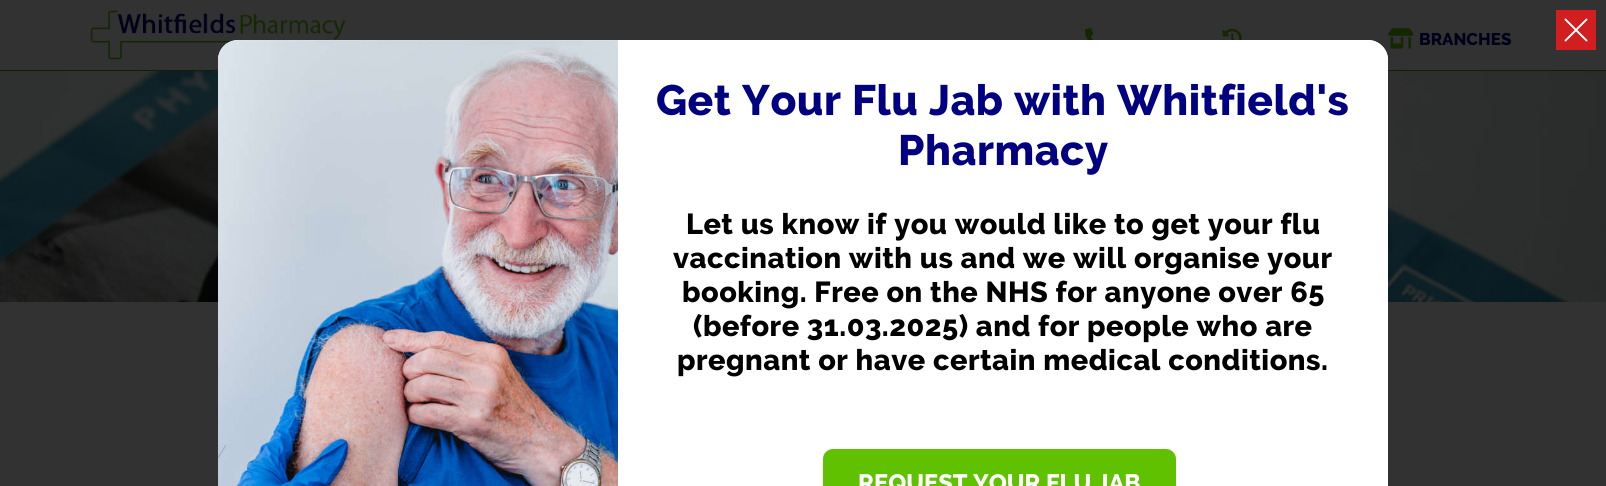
import math
import cairo

surface = cairo.ImageSurface(cairo.FORMAT_RGB24, 1606, 486)
ctx = cairo.Context(surface)
options = cairo.FontOptions()
options.set_hint_metrics(cairo.HINT_METRICS_OFF)
options.set_hint_style(cairo.HINT_STYLE_NONE)
ctx.set_font_options(options)
ctx.set_miter_limit(4)


def spaced_text(x, y, s, letter, word):
    ctx.move_to(x, y)
    for ch in s:
        ctx.show_text(ch)
        ctx.rel_move_to(letter + word * (ch == ' '), 0)


def picture(path, x, y, w, h):
    ctx.save()
    ctx.set_source_surface(cairo.ImageSurface.create_from_png(path), x, y)
    ctx.rectangle(x, y, w, h)
    ctx.fill()
    ctx.restore()


ctx.set_source_rgb(0.196, 0.196, 0.196)
ctx.paint()
ctx.set_source_rgb(0.067, 0.125, 0)
ctx.rectangle(0, 70, 1606, 1)
ctx.fill()
picture("img1.png", 90, 10, 256, 50)
picture("img2.png", 1085, 28, 9, 12)
picture("img3.png", 1222, 28, 20, 12)
picture("img4.png", 1388, 28, 26, 21)
ctx.select_font_face("Raleway ExtraBold")
ctx.set_font_size(17)
ctx.set_source_rgb(0, 0, 0.102)
ctx.move_to(1419, 45)
ctx.show_text("BRANCHES")
picture("img5.png", 0, 71, 1606, 231)
ctx.set_source_rgb(0.824, 0.118, 0.118)
ctx.rectangle(1556, 10, 40, 40)
ctx.fill()
picture("img6.png", 1564, 18, 24, 24)
ctx.set_source_rgb(1, 1, 1)
ctx.new_path()
ctx.move_to(238, 40)
ctx.line_to(1368, 40)
ctx.curve_to(1379, 40, 1388, 49, 1388, 60)
ctx.line_to(1388, 486)
ctx.line_to(218, 486)
ctx.line_to(218, 60)
ctx.curve_to(218, 49, 227, 40, 238, 40)
ctx.close_path()
ctx.fill()
picture("img7.png", 218, 40, 400, 446)
ctx.new_path()
ctx.move_to(618, 40)
ctx.line_to(1368, 40)
ctx.curve_to(1379, 40, 1388, 49, 1388, 60)
ctx.line_to(1388, 486)
ctx.line_to(618, 486)
ctx.close_path()
ctx.fill()
ctx.set_font_size(42.5)
ctx.set_source_rgb(0.004, 0, 0.502)
spaced_text(656, 115, "Get Your Flu Jab with Whitfield's", 0.5, 0)
spaced_text(898, 165, "Pharmacy", 0.5, 0)
ctx.set_font_size(28.9)
ctx.set_source_rgb(0, 0, 0)
spaced_text(686, 234, "Let us know if you would like to get your flu", 0.5, 0)
spaced_text(673, 268, "vaccination with us and we will organise your", 0.5, 0)
spaced_text(682, 302, "booking. Free on the NHS for anyone over 65", 0.5, 0)
spaced_text(693, 336, "(before 31.03.2025) and for people who are", 0.5, 0)
spaced_text(677, 370, "pregnant or have certain medical conditions.", 0.5, 0)
ctx.set_source_rgb(0.376, 0.757, 0)
ctx.new_path()
ctx.move_to(833, 449)
ctx.line_to(1166, 449)
ctx.curve_to(1171.5, 449, 1176, 453.5, 1176, 459)
ctx.line_to(1176, 486)
ctx.line_to(823, 486)
ctx.line_to(823, 459)
ctx.curve_to(823, 453.5, 827.5, 449, 833, 449)
ctx.close_path()
ctx.fill()
ctx.set_font_size(23.75)
ctx.set_source_rgb(1, 1, 1)
ctx.move_to(858, 491)
ctx.show_text("REQUEST YOUR FLU JAB")
surface.write_to_png("page.png")
